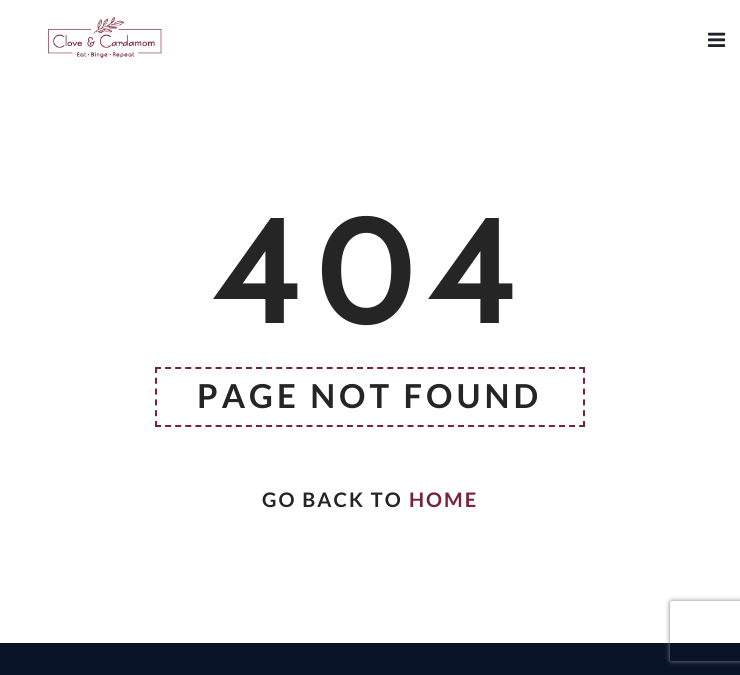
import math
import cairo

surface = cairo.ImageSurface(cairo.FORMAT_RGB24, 740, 675)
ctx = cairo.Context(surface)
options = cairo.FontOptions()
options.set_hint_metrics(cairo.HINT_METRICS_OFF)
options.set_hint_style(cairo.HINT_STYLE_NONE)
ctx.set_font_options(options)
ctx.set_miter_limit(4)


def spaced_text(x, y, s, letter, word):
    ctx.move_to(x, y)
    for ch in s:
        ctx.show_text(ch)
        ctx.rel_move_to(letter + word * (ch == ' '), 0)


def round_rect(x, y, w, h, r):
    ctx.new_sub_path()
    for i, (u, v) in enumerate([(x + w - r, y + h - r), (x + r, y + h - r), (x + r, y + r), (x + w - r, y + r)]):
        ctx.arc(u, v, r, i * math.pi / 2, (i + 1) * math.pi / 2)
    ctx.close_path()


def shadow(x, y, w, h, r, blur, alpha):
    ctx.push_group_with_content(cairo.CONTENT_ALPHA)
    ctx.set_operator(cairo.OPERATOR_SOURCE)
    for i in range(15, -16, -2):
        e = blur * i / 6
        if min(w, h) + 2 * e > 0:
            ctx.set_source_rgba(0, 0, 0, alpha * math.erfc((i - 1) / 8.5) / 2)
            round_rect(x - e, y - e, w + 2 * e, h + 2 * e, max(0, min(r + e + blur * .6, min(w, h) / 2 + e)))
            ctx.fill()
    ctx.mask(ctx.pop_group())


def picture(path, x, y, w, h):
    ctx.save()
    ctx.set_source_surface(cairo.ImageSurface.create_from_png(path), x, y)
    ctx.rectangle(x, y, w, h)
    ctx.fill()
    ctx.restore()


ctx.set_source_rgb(1, 1, 1)
ctx.paint()
picture("img1.png", 48, 17, 114, 41)
picture("img2.png", 708, 32, 18, 15)
ctx.select_font_face("Cabin", cairo.FONT_SLANT_NORMAL, cairo.FONT_WEIGHT_BOLD)
ctx.set_font_size(150)
ctx.set_source_rgb(0.145, 0.145, 0.145)
spaced_text(212, 323, "404", 8, 0)
ctx.new_path()
ctx.move_to(155, 368)
ctx.line_to(585, 368)
ctx.set_source_rgb(0.471, 0.133, 0.227)
ctx.set_dash([6, 4.1])
ctx.stroke()
ctx.new_path()
ctx.move_to(584, 367)
ctx.line_to(584, 427)
ctx.set_dash([6, 4.8])
ctx.stroke()
ctx.new_path()
ctx.move_to(155, 426)
ctx.line_to(585, 426)
ctx.set_dash([6, 4.1])
ctx.stroke()
ctx.new_path()
ctx.move_to(156, 367)
ctx.line_to(156, 427)
ctx.set_dash([6, 4.8])
ctx.stroke()
ctx.select_font_face("Lato", cairo.FONT_SLANT_NORMAL, cairo.FONT_WEIGHT_BOLD)
ctx.set_font_size(33)
ctx.set_source_rgb(0.145, 0.145, 0.145)
spaced_text(197, 408, "PAGE NOT FOUND", 4, 0)
ctx.set_font_size(20)
spaced_text(262, 507, "GO BACK TO", 2, 0)
ctx.set_source_rgb(0.471, 0.133, 0.227)
spaced_text(409, 507, "HOME", 2, 0)
ctx.set_source_rgb(0.035, 0.078, 0.157)
ctx.rectangle(0, 643, 740, 32)
ctx.fill()
ctx.save()
ctx.set_fill_rule(cairo.FILL_RULE_EVEN_ODD)
ctx.new_path()
ctx.move_to(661, 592)
ctx.line_to(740, 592)
ctx.line_to(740, 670)
ctx.line_to(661, 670)
ctx.close_path()
ctx.move_to(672, 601)
ctx.line_to(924, 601)
ctx.curve_to(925, 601, 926, 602, 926, 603)
ctx.line_to(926, 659)
ctx.curve_to(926, 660, 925, 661, 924, 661)
ctx.line_to(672, 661)
ctx.curve_to(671, 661, 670, 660, 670, 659)
ctx.line_to(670, 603)
ctx.curve_to(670, 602, 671, 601, 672, 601)
ctx.close_path()
ctx.clip()
ctx.set_source_rgb(0.502, 0.502, 0.502)
shadow(670, 601, 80, 60, 2, 2.5, 1)
ctx.restore()
surface.write_to_png("page.png")
